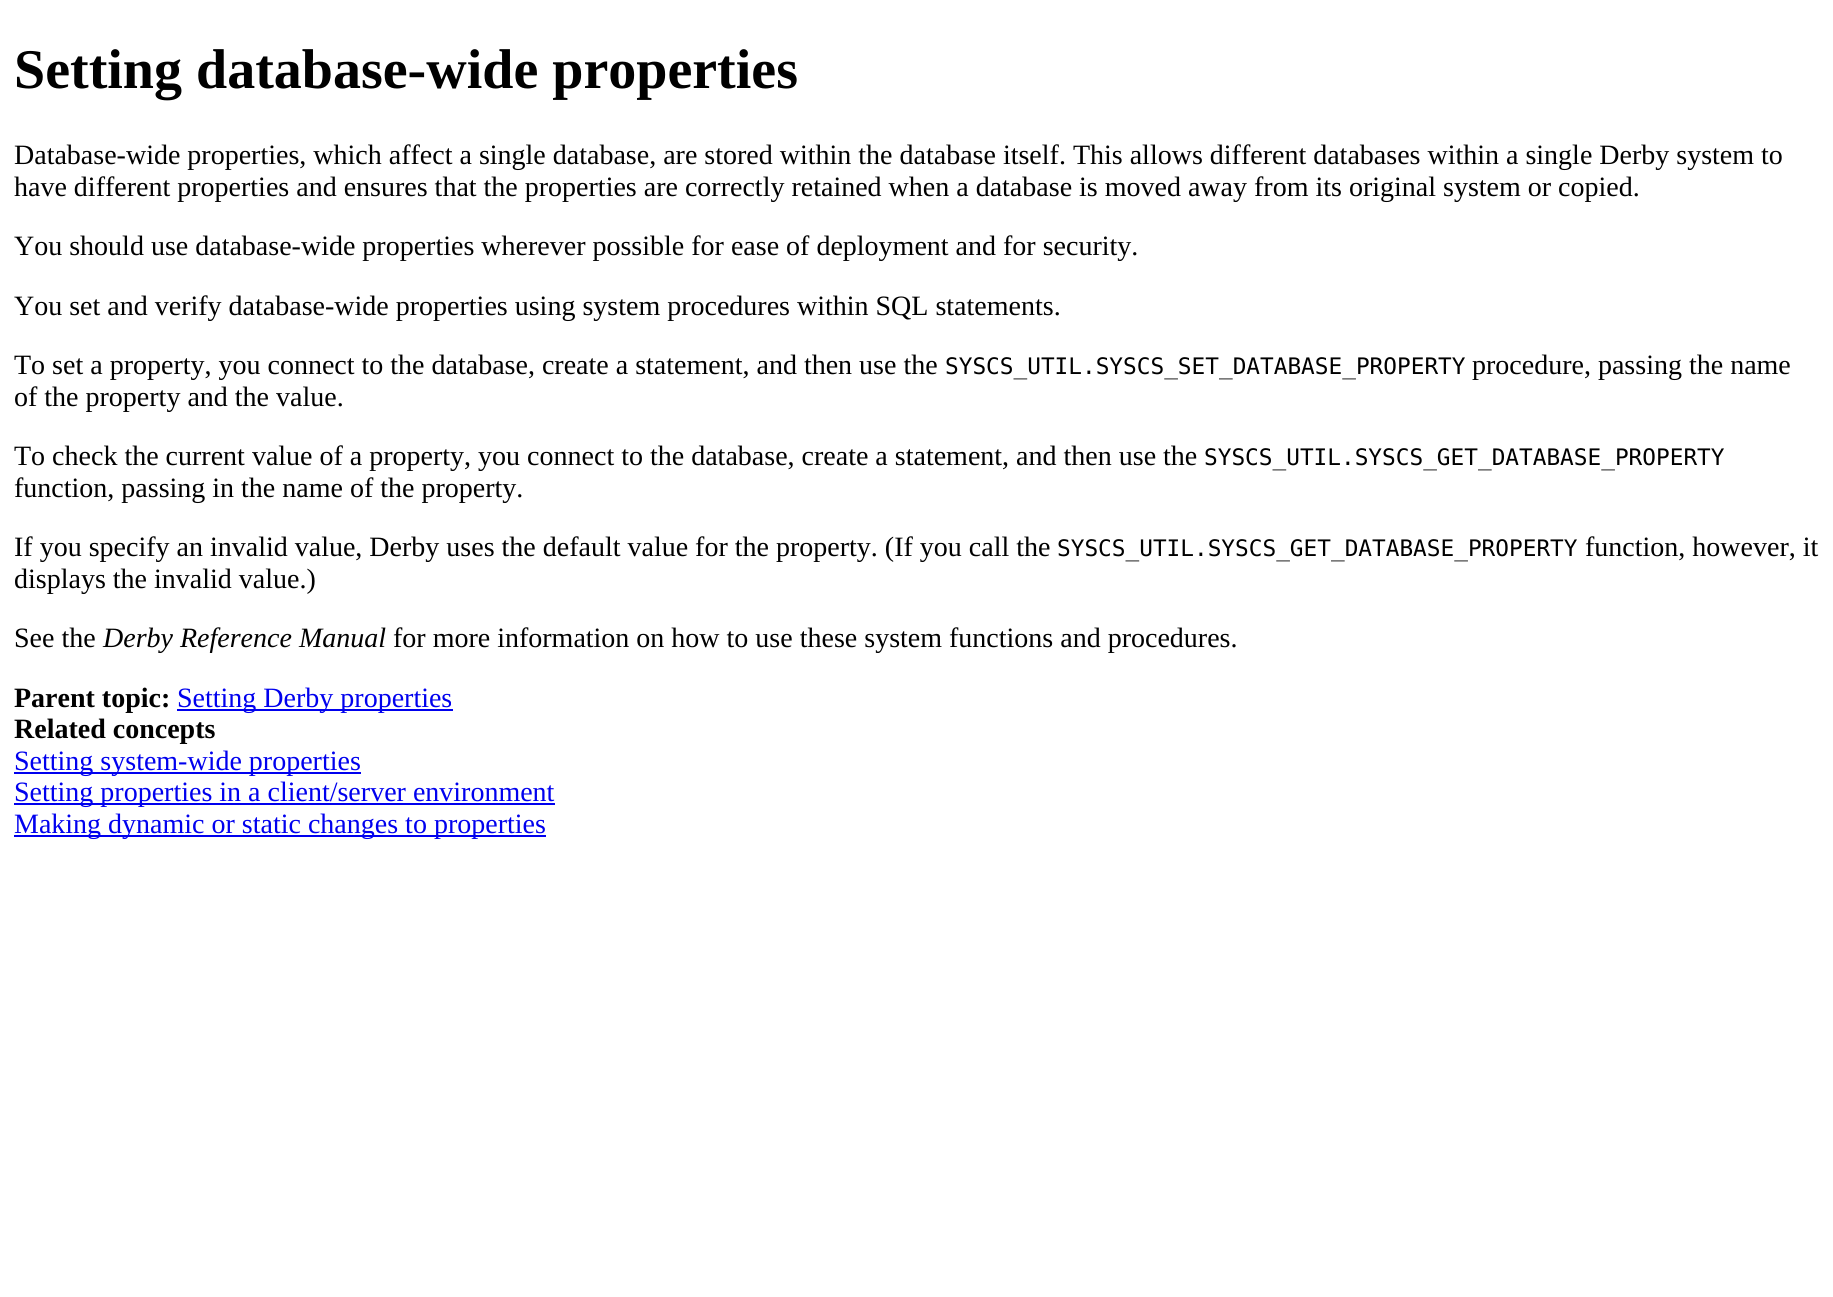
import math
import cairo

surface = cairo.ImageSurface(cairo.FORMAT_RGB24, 1833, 1297)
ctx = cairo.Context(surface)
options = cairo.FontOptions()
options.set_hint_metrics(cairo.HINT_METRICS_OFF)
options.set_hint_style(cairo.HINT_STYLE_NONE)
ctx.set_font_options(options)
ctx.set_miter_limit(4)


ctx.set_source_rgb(1, 1, 1)
ctx.paint()
ctx.select_font_face("Liberation Serif", cairo.FONT_SLANT_NORMAL, cairo.FONT_WEIGHT_BOLD)
ctx.set_font_size(56)
ctx.set_source_rgb(0, 0, 0)
ctx.move_to(14, 88)
ctx.show_text("Setting database-wide properties")
ctx.select_font_face("Liberation Serif")
ctx.set_font_size(28)
ctx.move_to(14, 164)
ctx.show_text("Database-wide properties, which affect a single database, are stored within the database itself. This allows different databases within a single Derby system to")
ctx.move_to(14, 196)
ctx.show_text("have different properties and ensures that the properties are correctly retained when a database is moved away from its original system or copied.")
ctx.move_to(14, 255)
ctx.show_text("You should use database-wide properties wherever possible for ease of deployment and for security.")
ctx.move_to(14, 315)
ctx.show_text("You set and verify database-wide properties using system procedures within SQL statements.")
ctx.move_to(14, 374)
ctx.show_text("To set a property, you connect to the database, create a statement, and then use the")
ctx.select_font_face("DejaVu Sans Mono")
ctx.set_font_size(22.75)
ctx.move_to(945, 374)
ctx.show_text("SYSCS_UTIL.SYSCS_SET_DATABASE_PROPERTY")
ctx.select_font_face("Liberation Serif")
ctx.set_font_size(28)
ctx.move_to(1472, 374)
ctx.show_text("procedure, passing the name")
ctx.move_to(14, 406)
ctx.show_text("of the property and the value.")
ctx.move_to(14, 465)
ctx.show_text("To check the current value of a property, you connect to the database, create a statement, and then use the")
ctx.select_font_face("DejaVu Sans Mono")
ctx.set_font_size(22.75)
ctx.move_to(1204, 465)
ctx.show_text("SYSCS_UTIL.SYSCS_GET_DATABASE_PROPERTY")
ctx.select_font_face("Liberation Serif")
ctx.set_font_size(28)
ctx.move_to(14, 497)
ctx.show_text("function, passing in the name of the property.")
ctx.move_to(14, 556)
ctx.show_text("If you specify an invalid value, Derby uses the default value for the property. (If you call the")
ctx.select_font_face("DejaVu Sans Mono")
ctx.set_font_size(22.75)
ctx.move_to(1057, 556)
ctx.show_text("SYSCS_UTIL.SYSCS_GET_DATABASE_PROPERTY")
ctx.select_font_face("Liberation Serif")
ctx.set_font_size(28)
ctx.move_to(1585, 556)
ctx.show_text("function, however, it")
ctx.move_to(14, 588)
ctx.show_text("displays the invalid value.)")
ctx.move_to(14, 647)
ctx.show_text("See the")
ctx.select_font_face("Liberation Serif", cairo.FONT_SLANT_ITALIC)
ctx.move_to(103, 647)
ctx.show_text("Derby Reference Manual")
ctx.select_font_face("Liberation Serif")
ctx.move_to(393, 647)
ctx.show_text("for more information on how to use these system functions and procedures.")
ctx.select_font_face("Liberation Serif", cairo.FONT_SLANT_NORMAL, cairo.FONT_WEIGHT_BOLD)
ctx.move_to(14, 707)
ctx.show_text("Parent topic:")
ctx.set_source_rgb(0, 0, 0.933)
ctx.rectangle(177, 709, 276, 2)
ctx.fill()
ctx.select_font_face("Liberation Serif")
ctx.move_to(177, 707)
ctx.show_text("Setting Derby properties")
ctx.select_font_face("Liberation Serif", cairo.FONT_SLANT_NORMAL, cairo.FONT_WEIGHT_BOLD)
ctx.set_source_rgb(0, 0, 0)
ctx.move_to(14, 738)
ctx.show_text("Related concepts")
ctx.set_source_rgb(0, 0, 0.933)
ctx.rectangle(14, 772, 347, 2)
ctx.fill()
ctx.select_font_face("Liberation Serif")
ctx.move_to(14, 770)
ctx.show_text("Setting system-wide properties")
ctx.rectangle(14, 803, 541, 2)
ctx.fill()
ctx.move_to(14, 801)
ctx.show_text("Setting properties in a client/server environment")
ctx.rectangle(14, 835, 532, 2)
ctx.fill()
ctx.move_to(14, 833)
ctx.show_text("Making dynamic or static changes to properties")
surface.write_to_png("page.png")
